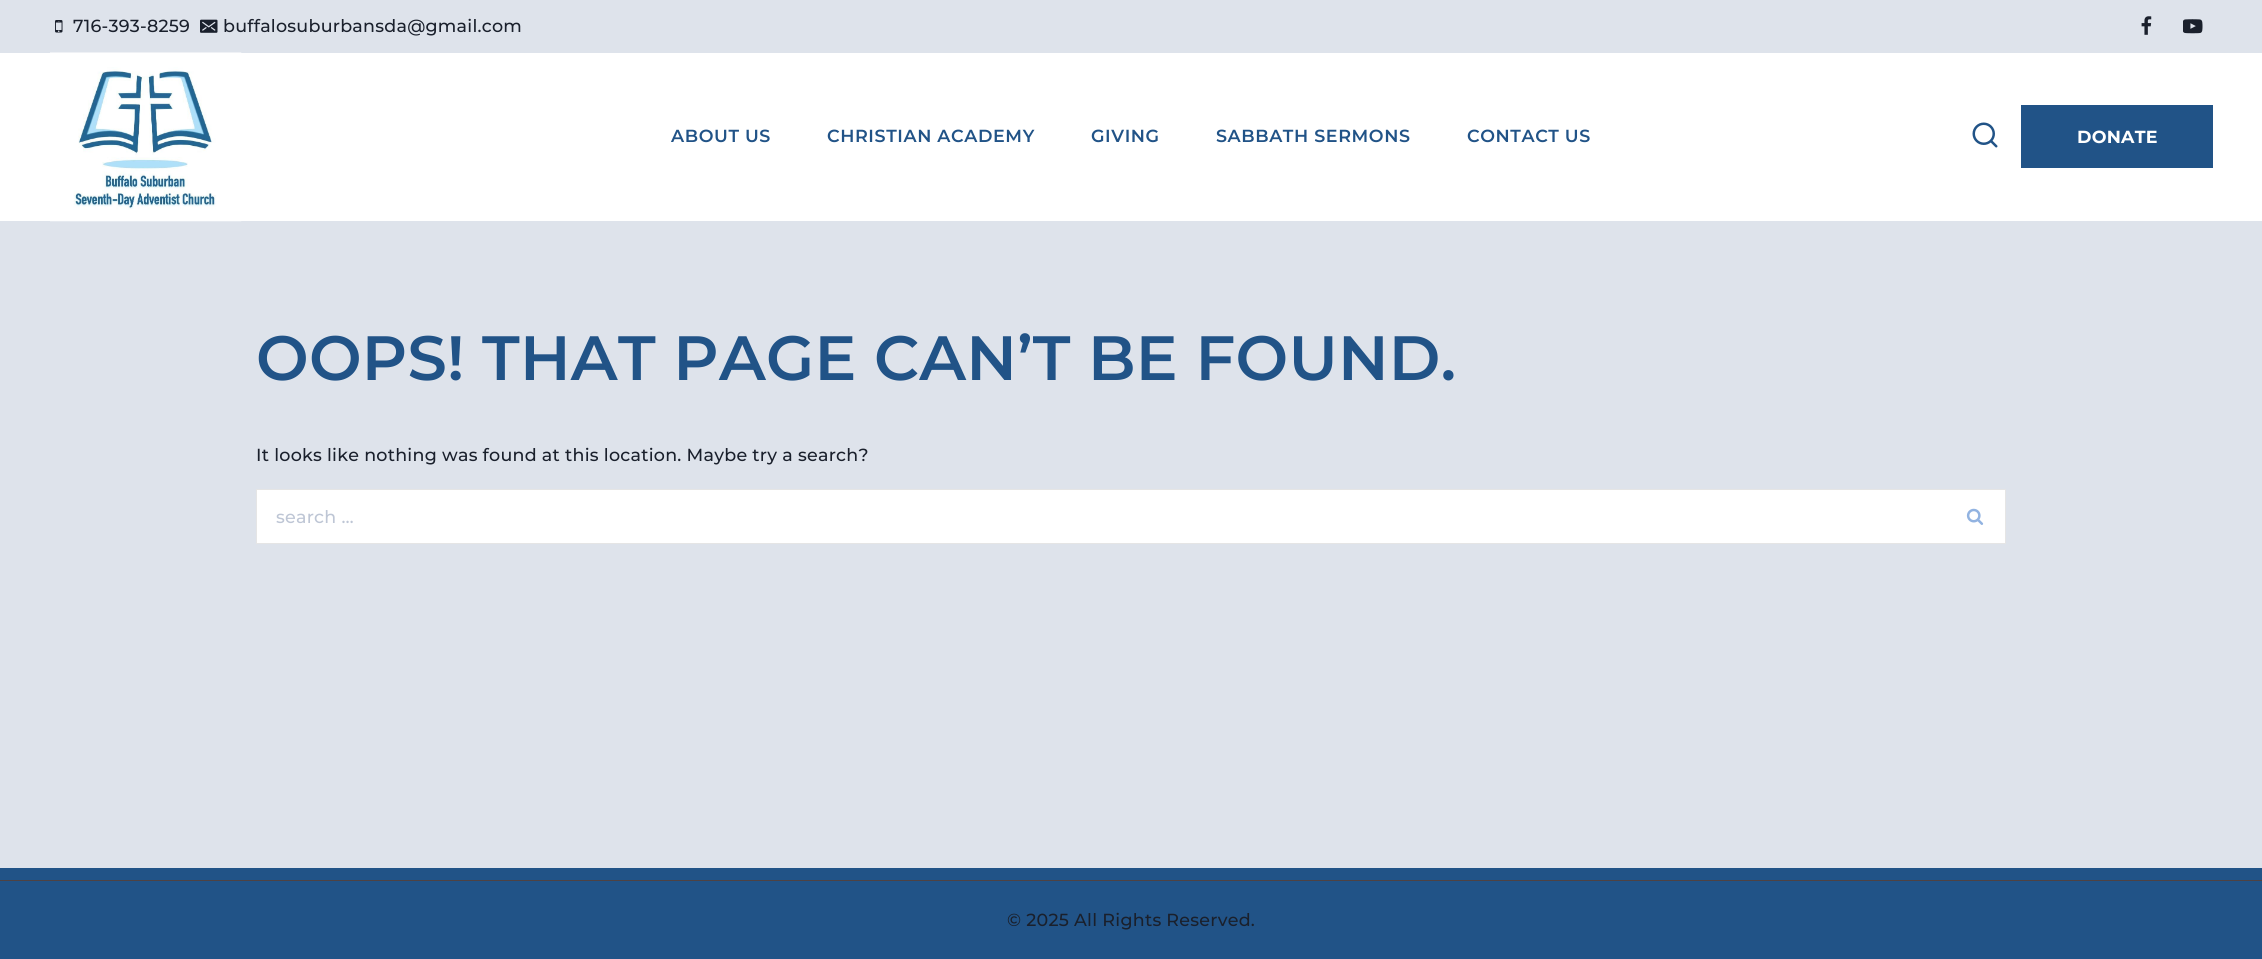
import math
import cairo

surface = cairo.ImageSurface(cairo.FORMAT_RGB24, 2262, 959)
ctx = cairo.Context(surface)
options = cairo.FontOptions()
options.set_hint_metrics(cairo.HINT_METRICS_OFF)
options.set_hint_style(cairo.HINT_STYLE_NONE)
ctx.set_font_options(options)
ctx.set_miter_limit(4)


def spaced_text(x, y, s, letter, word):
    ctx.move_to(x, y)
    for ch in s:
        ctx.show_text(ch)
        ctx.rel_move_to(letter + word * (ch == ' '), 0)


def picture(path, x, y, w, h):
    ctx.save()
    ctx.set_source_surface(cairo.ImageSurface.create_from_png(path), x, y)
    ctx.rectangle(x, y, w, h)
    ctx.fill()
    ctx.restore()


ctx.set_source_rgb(0.871, 0.89, 0.918)
ctx.paint()
ctx.set_source_rgb(1, 1, 1)
ctx.rectangle(0, 53, 2262, 168)
ctx.fill()
picture("img1.png", 55, 20, 8, 13)
ctx.select_font_face("Montserrat Medium")
ctx.set_font_size(17.5)
ctx.set_source_rgb(0.102, 0.125, 0.173)
spaced_text(73, 32, "716-393-8259", 0.25, 0)
picture("img2.png", 200, 19, 18, 14)
spaced_text(223, 32, "buffalosuburbansda@gmail.com", 0.25, 0)
picture("img3.png", 2141, 16, 11, 19)
picture("img4.png", 2183, 19, 20, 15)
picture("img5.png", 50, 52, 192, 170)
ctx.select_font_face("Montserrat SemiBold")
ctx.set_source_rgb(0.129, 0.325, 0.529)
spaced_text(671, 142, "ABOUT US", 0.6, 0)
spaced_text(827, 142, "CHRISTIAN ACADEMY", 0.6, 0)
spaced_text(1091, 142, "GIVING", 0.6, 0)
spaced_text(1216, 142, "SABBATH SERMONS", 0.6, 0)
spaced_text(1467, 142, "CONTACT US", 0.6, 0)
picture("img6.png", 1972, 122, 26, 26)
ctx.rectangle(2021, 105, 192, 63)
ctx.fill()
ctx.select_font_face("Montserrat", cairo.FONT_SLANT_NORMAL, cairo.FONT_WEIGHT_BOLD)
ctx.set_source_rgb(1, 1, 1)
spaced_text(2077, 143, "DONATE", 0.25, 0)
ctx.select_font_face("Montserrat SemiBold")
ctx.set_font_size(62.5)
ctx.set_source_rgb(0.129, 0.325, 0.529)
spaced_text(256, 380, "OOPS! THAT PAGE CAN’T BE FOUND.", 0.25, 0)
ctx.select_font_face("Montserrat Medium")
ctx.set_font_size(17.5)
ctx.set_source_rgb(0.102, 0.125, 0.173)
spaced_text(256, 461, "It looks like nothing was found at this location. Maybe try a search?", 0.25, 0)
ctx.set_source_rgb(1, 1, 1)
ctx.rectangle(256.5, 489.5, 1749, 54)
ctx.fill_preserve()
ctx.set_source_rgb(0.898, 0.898, 0.898)
ctx.set_line_width(1)
ctx.stroke()
ctx.set_source_rgb(0.745, 0.776, 0.835)
spaced_text(276, 523, "search …", 0.25, 0)
picture("img7.png", 1966, 508, 18, 17)
ctx.set_source_rgb(0.129, 0.325, 0.529)
ctx.rectangle(0, 868, 2262, 91)
ctx.fill()
ctx.set_source_rgb(0.31, 0.259, 0.259)
ctx.rectangle(0, 880, 2262, 1)
ctx.fill()
ctx.set_source_rgb(0.102, 0.125, 0.173)
spaced_text(1007, 926, "© 2025 All Rights Reserved.", 0.25, 0)
surface.write_to_png("page.png")
